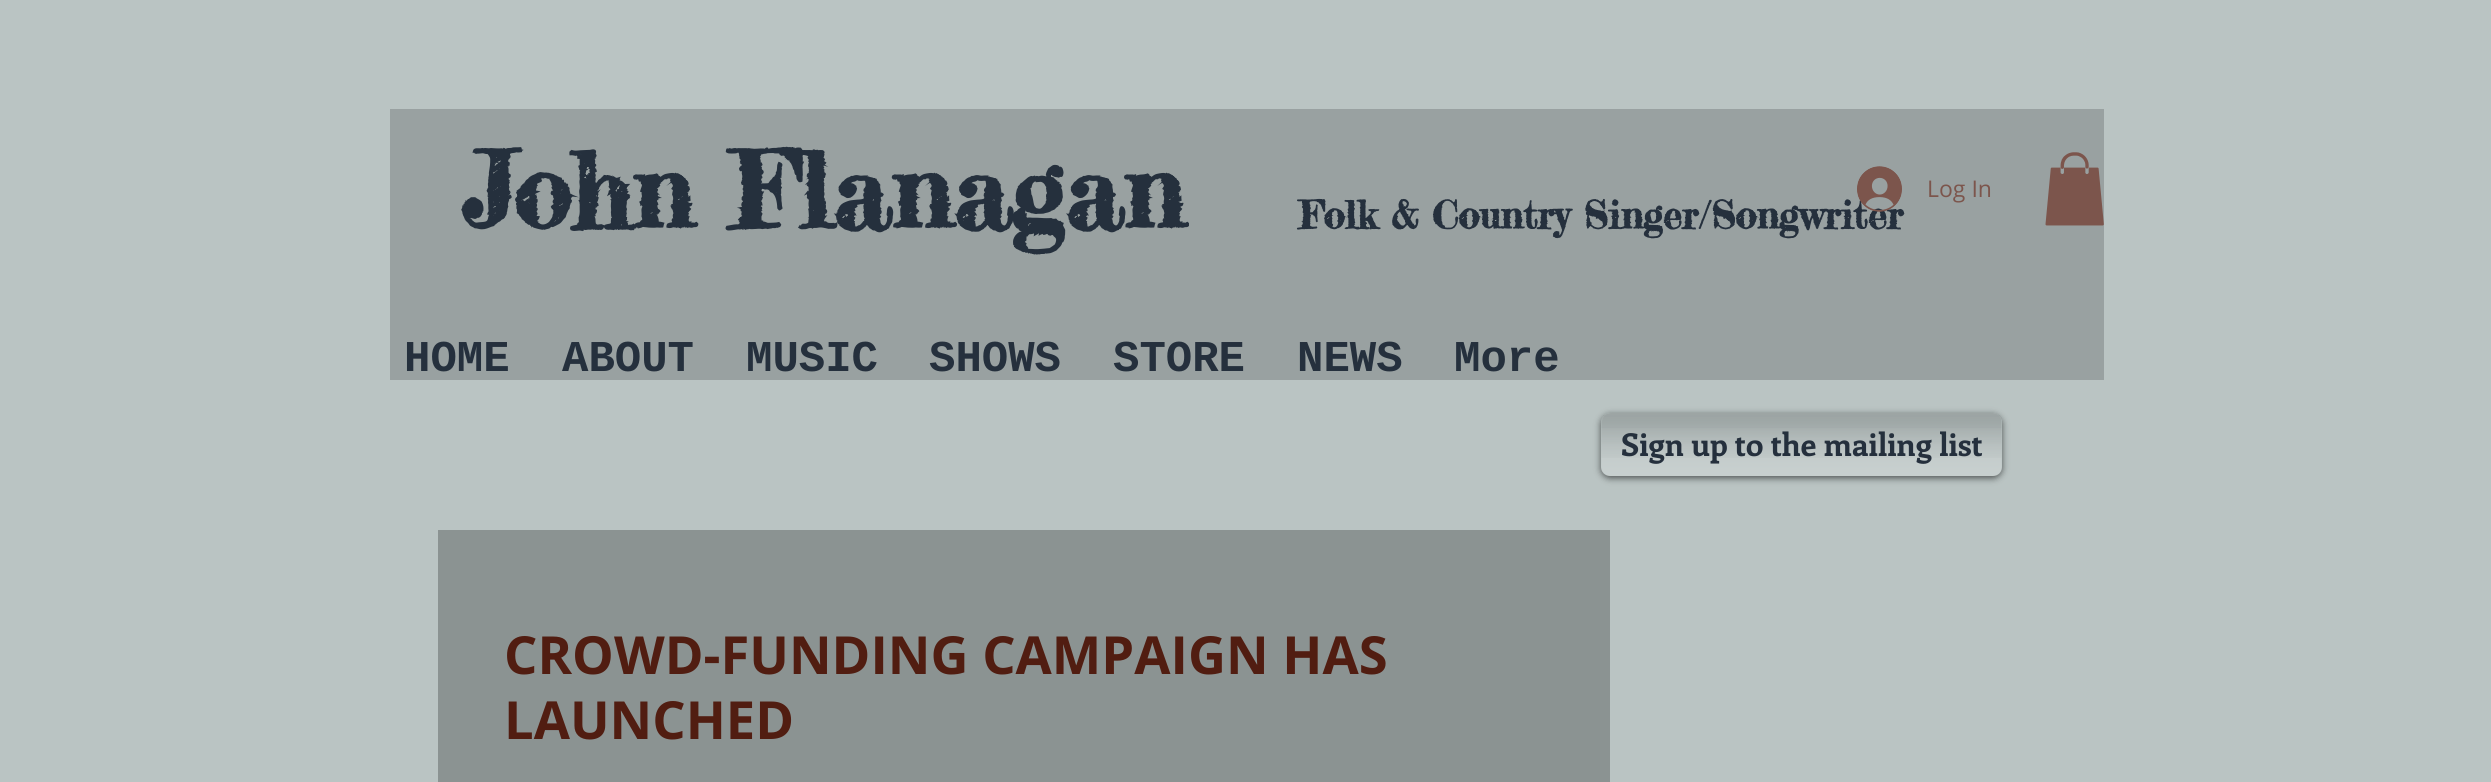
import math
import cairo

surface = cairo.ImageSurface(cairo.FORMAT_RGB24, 2491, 782)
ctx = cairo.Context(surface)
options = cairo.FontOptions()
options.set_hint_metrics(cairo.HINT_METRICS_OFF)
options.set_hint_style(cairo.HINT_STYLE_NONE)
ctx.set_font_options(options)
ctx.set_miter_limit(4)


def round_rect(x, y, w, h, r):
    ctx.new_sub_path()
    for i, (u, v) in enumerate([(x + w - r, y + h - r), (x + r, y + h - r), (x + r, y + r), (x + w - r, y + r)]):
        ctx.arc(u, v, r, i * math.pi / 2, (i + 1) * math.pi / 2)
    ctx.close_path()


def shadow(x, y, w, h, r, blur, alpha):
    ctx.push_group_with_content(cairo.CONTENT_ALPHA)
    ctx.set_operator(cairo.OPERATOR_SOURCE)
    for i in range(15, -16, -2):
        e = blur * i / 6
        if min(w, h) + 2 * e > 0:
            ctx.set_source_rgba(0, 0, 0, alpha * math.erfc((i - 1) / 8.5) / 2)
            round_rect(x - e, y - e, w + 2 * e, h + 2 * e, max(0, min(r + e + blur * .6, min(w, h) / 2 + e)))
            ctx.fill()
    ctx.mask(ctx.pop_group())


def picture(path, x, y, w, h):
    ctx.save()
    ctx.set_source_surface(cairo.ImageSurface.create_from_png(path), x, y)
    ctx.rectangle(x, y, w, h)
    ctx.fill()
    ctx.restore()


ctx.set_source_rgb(0.729, 0.769, 0.765)
ctx.paint()
ctx.set_source_rgb(0.6, 0.631, 0.631)
ctx.rectangle(390, 109, 1714, 271)
ctx.fill()
ctx.select_font_face("Fredericka the Great", cairo.FONT_SLANT_NORMAL, cairo.FONT_WEIGHT_BOLD)
ctx.set_font_size(105)
ctx.set_source_rgb(0.145, 0.188, 0.239)
ctx.move_to(462, 229)
ctx.show_text("John Flanagan")
ctx.set_font_size(38.5)
ctx.move_to(1299, 229)
ctx.show_text("Folk & Country Singer/Songwriter")
picture("img1.png", 1857, 166, 45, 46)
ctx.select_font_face("Open Sans")
ctx.set_font_size(23)
ctx.set_source_rgb(0.486, 0.333, 0.298)
ctx.move_to(1927, 197)
ctx.show_text("Log In")
picture("img2.png", 2045, 152, 59, 74)
ctx.select_font_face("Liberation Mono", cairo.FONT_SLANT_NORMAL, cairo.FONT_WEIGHT_BOLD)
ctx.set_font_size(44)
ctx.set_source_rgb(0.145, 0.188, 0.239)
ctx.move_to(404, 371)
ctx.show_text("HOME")
ctx.move_to(562, 371)
ctx.show_text("ABOUT")
ctx.move_to(746, 371)
ctx.show_text("MUSIC")
ctx.move_to(929, 371)
ctx.show_text("SHOWS")
ctx.move_to(1113, 371)
ctx.show_text("STORE")
ctx.move_to(1297, 371)
ctx.show_text("NEWS")
ctx.move_to(1454, 371)
ctx.show_text("More")
ctx.set_source_rgb(0, 0, 0)
shadow(1601, 415, 401, 63, 9, 3.5, 0.6)
ctx.set_source_rgb(0.729, 0.769, 0.765)
round_rect(1601, 413, 401, 63, 9)
ctx.fill()
picture("img3.png", 1601, 413, 401, 45)
picture("img4.png", 1601, 428, 401, 48)
ctx.select_font_face("Enriqueta", cairo.FONT_SLANT_NORMAL, cairo.FONT_WEIGHT_BOLD)
ctx.set_font_size(31.5)
ctx.set_source_rgb(0.145, 0.188, 0.239)
ctx.move_to(1621, 456)
ctx.show_text("Sign up to the mailing list")
ctx.set_source_rgb(0.545, 0.576, 0.573)
ctx.rectangle(438, 530, 1172, 252)
ctx.fill()
ctx.select_font_face("Open Sans", cairo.FONT_SLANT_NORMAL, cairo.FONT_WEIGHT_BOLD)
ctx.set_font_size(52.5)
ctx.set_source_rgb(0.318, 0.114, 0.067)
ctx.move_to(504, 674)
ctx.show_text("CROWD-FUNDING CAMPAIGN HAS")
ctx.move_to(504, 739)
ctx.show_text("LAUNCHED")
surface.write_to_png("page.png")
